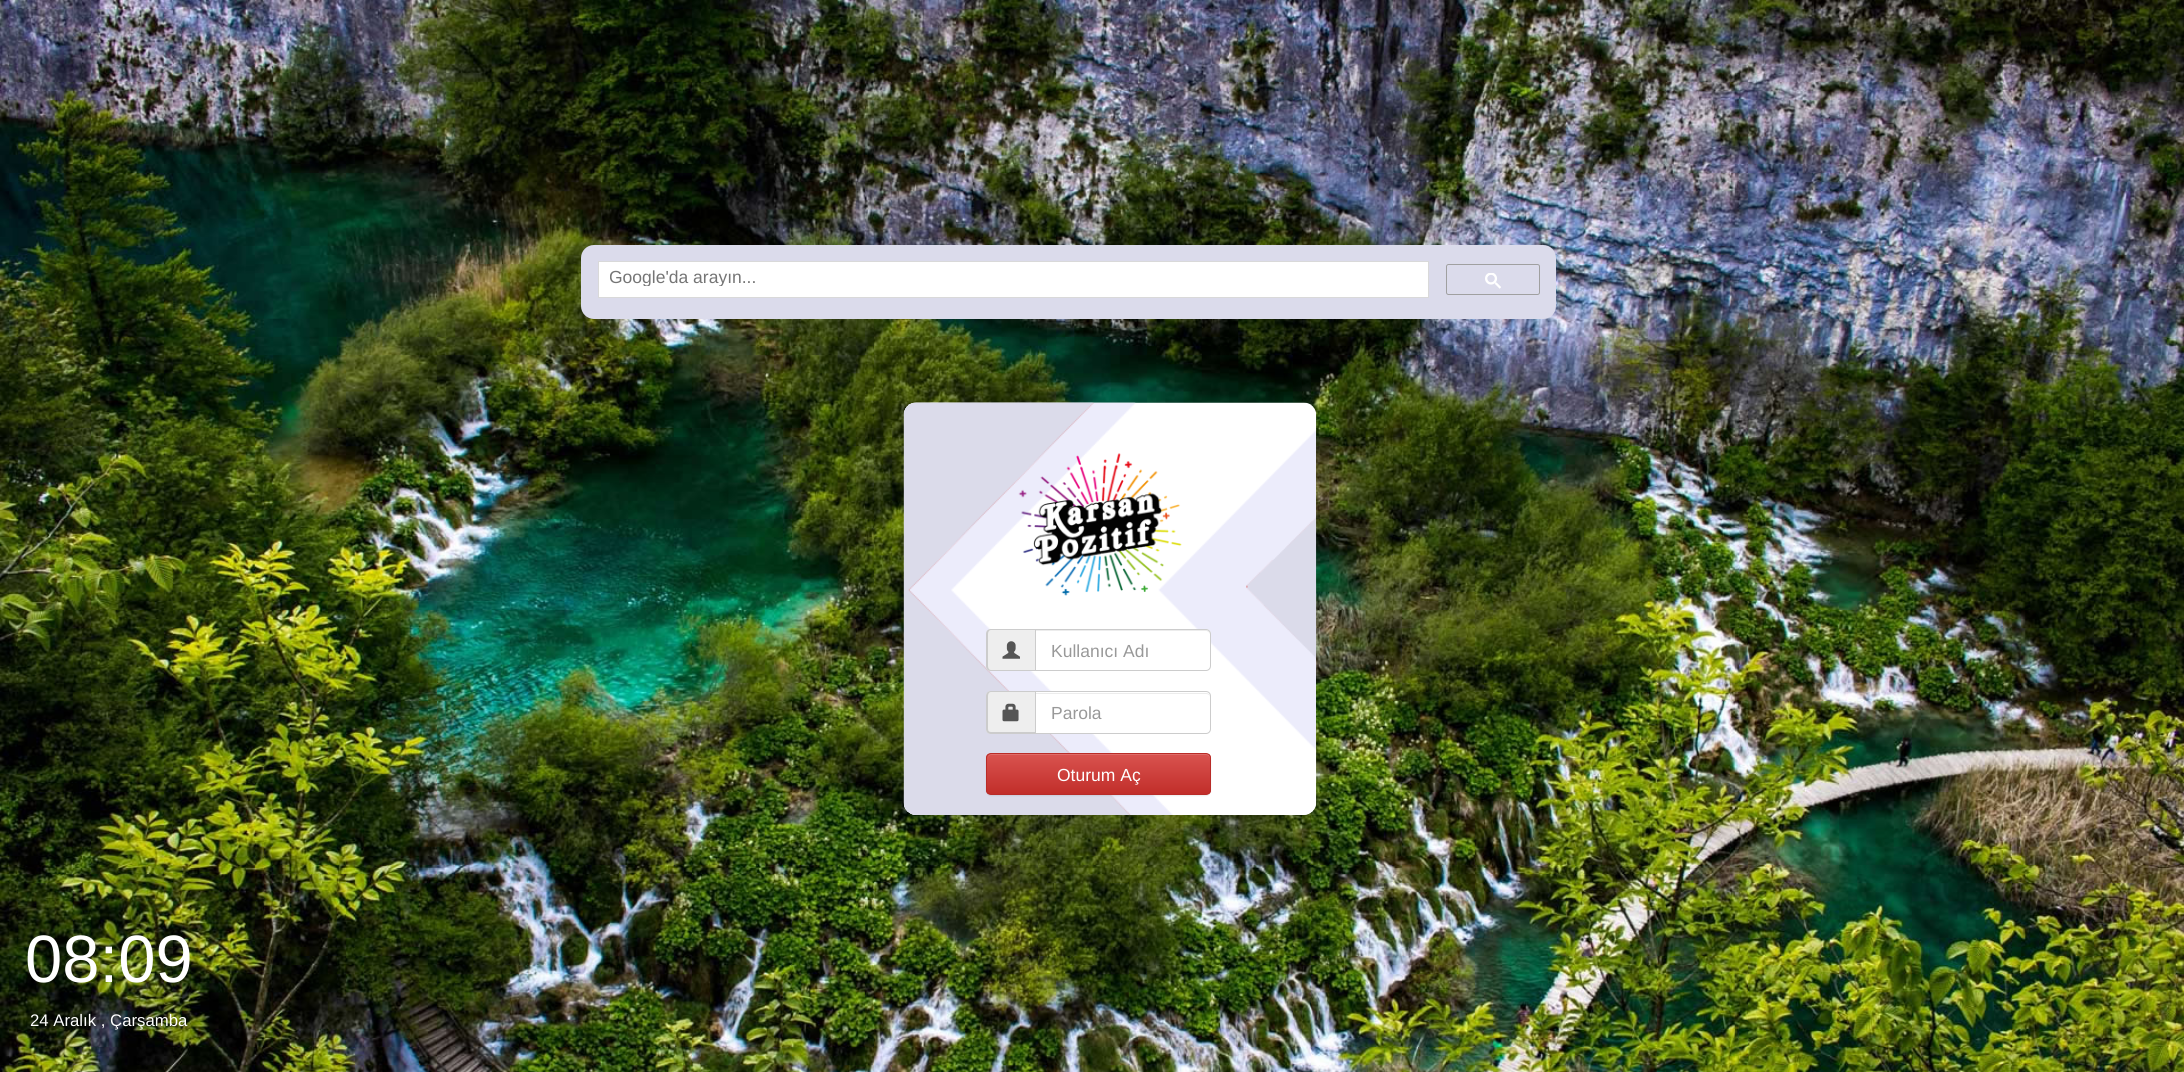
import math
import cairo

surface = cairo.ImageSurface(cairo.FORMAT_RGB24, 2184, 1072)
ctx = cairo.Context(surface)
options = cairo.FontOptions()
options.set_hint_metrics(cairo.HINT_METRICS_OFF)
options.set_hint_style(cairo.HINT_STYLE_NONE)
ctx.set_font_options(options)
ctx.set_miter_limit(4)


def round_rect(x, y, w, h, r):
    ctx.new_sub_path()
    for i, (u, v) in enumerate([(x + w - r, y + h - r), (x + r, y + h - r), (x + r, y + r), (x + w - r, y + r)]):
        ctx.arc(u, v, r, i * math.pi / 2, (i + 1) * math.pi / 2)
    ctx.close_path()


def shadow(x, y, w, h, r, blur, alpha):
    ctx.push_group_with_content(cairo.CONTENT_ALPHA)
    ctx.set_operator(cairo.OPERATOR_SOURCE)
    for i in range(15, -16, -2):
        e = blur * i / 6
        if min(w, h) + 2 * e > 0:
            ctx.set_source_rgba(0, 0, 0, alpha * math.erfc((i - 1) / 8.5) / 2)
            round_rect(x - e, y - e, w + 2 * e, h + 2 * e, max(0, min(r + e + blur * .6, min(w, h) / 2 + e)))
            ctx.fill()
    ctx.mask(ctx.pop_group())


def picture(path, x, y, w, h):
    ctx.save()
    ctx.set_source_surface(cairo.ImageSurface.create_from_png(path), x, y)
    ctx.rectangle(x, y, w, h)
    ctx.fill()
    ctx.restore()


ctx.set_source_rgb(1, 1, 1)
ctx.paint()
picture("img1.png", 0, 0, 2184, 1072)
ctx.set_source_rgb(0.859, 0.859, 0.918)
round_rect(581, 245, 975, 74, 13)
ctx.fill()
ctx.set_source_rgb(1, 1, 1)
ctx.rectangle(598.5, 261.5, 830, 36)
ctx.fill_preserve()
ctx.set_source_rgb(0.851, 0.851, 0.851)
ctx.set_line_width(1)
ctx.stroke()
ctx.save()
ctx.rectangle(610, 266, 801, 20)
ctx.clip()
ctx.select_font_face("Liberation Sans")
ctx.set_font_size(17.5)
ctx.set_source_rgb(0.459, 0.459, 0.459)
ctx.move_to(609, 283)
ctx.show_text("Google'da arayın...")
ctx.restore()
round_rect(1446.5, 264.5, 93, 30, 2)
ctx.set_source_rgb(0.627, 0.627, 0.627)
ctx.stroke()
picture("img2.png", 1485, 273, 16, 16)
ctx.set_source_rgb(0.925, 0.925, 0.984)
round_rect(904, 403, 412, 412, 13)
ctx.fill()
picture("img3.png", 903, 402, 414, 413)
picture("img4.png", 903, 402, 270, 413)
picture("img5.png", 903, 402, 228, 413)
picture("img6.png", 1246, 517, 71, 142)
picture("img7.png", 1018, 453, 164, 143)
ctx.set_source_rgb(0.933, 0.933, 0.933)
ctx.new_path()
ctx.move_to(991, 629)
ctx.line_to(1035, 629)
ctx.line_to(1035, 671)
ctx.line_to(991, 671)
ctx.curve_to(988, 671, 986, 669, 986, 666)
ctx.line_to(986, 634)
ctx.curve_to(986, 631, 988, 629, 991, 629)
ctx.close_path()
ctx.fill()
ctx.set_source_rgb(0.8, 0.8, 0.8)
ctx.set_fill_rule(cairo.FILL_RULE_EVEN_ODD)
ctx.new_path()
ctx.move_to(991, 629)
ctx.line_to(1035, 629)
ctx.line_to(1035, 671)
ctx.line_to(991, 671)
ctx.curve_to(988, 671, 986, 669, 986, 666)
ctx.line_to(986, 634)
ctx.curve_to(986, 631, 988, 629, 991, 629)
ctx.close_path()
ctx.move_to(991, 630)
ctx.line_to(1035, 630)
ctx.line_to(1035, 670)
ctx.line_to(991, 670)
ctx.curve_to(989, 670, 988, 668, 988, 666)
ctx.line_to(988, 634)
ctx.curve_to(988, 632, 989, 630, 991, 630)
ctx.close_path()
ctx.fill()
picture("img8.png", 1002, 641, 18, 18)
ctx.set_source_rgb(1, 1, 1)
ctx.new_path()
ctx.move_to(1035, 629)
ctx.line_to(1206, 629)
ctx.curve_to(1209, 629, 1211, 631, 1211, 634)
ctx.line_to(1211, 666)
ctx.curve_to(1211, 669, 1209, 671, 1206, 671)
ctx.line_to(1035, 671)
ctx.close_path()
ctx.fill()
ctx.set_source_rgb(0.925, 0.925, 0.925)
ctx.set_fill_rule(cairo.FILL_RULE_WINDING)
ctx.new_path()
ctx.move_to(1036, 631)
ctx.line_to(1206, 631)
ctx.curve_to(1208, 631, 1210, 633, 1210, 635)
ctx.curve_to(1210, 632, 1209, 630, 1206, 630)
ctx.line_to(1036, 630)
ctx.close_path()
ctx.fill()
ctx.new_path()
ctx.move_to(1035.5, 629.5)
ctx.line_to(1206, 629.5)
ctx.curve_to(1208.5, 629.5, 1210.5, 631.5, 1210.5, 634)
ctx.line_to(1210.5, 666)
ctx.curve_to(1210.5, 668.5, 1208.5, 670.5, 1206, 670.5)
ctx.line_to(1035.5, 670.5)
ctx.close_path()
ctx.set_source_rgb(0.8, 0.8, 0.8)
ctx.stroke()
ctx.select_font_face("Liberation Sans")
ctx.set_font_size(17.5)
ctx.set_source_rgb(0.6, 0.6, 0.6)
ctx.move_to(1051, 657)
ctx.show_text("Kullanıcı Adı")
ctx.set_source_rgb(0.933, 0.933, 0.933)
ctx.new_path()
ctx.move_to(991, 691)
ctx.line_to(1035, 691)
ctx.line_to(1035, 734)
ctx.line_to(991, 734)
ctx.curve_to(988, 734, 986, 732, 986, 729)
ctx.line_to(986, 696)
ctx.curve_to(986, 693, 988, 691, 991, 691)
ctx.close_path()
ctx.fill()
ctx.set_source_rgb(0.8, 0.8, 0.8)
ctx.set_fill_rule(cairo.FILL_RULE_EVEN_ODD)
ctx.new_path()
ctx.move_to(991, 691)
ctx.line_to(1035, 691)
ctx.line_to(1035, 734)
ctx.line_to(991, 734)
ctx.curve_to(988, 734, 986, 732, 986, 729)
ctx.line_to(986, 696)
ctx.curve_to(986, 693, 988, 691, 991, 691)
ctx.close_path()
ctx.move_to(991, 692)
ctx.line_to(1035, 692)
ctx.line_to(1035, 732)
ctx.line_to(991, 732)
ctx.curve_to(989, 732, 988, 731, 988, 729)
ctx.line_to(988, 696)
ctx.curve_to(988, 694, 989, 692, 991, 692)
ctx.close_path()
ctx.fill()
picture("img9.png", 1002, 703, 17, 19)
ctx.set_source_rgb(1, 1, 1)
ctx.new_path()
ctx.move_to(1035, 691)
ctx.line_to(1206, 691)
ctx.curve_to(1209, 691, 1211, 693, 1211, 696)
ctx.line_to(1211, 729)
ctx.curve_to(1211, 732, 1209, 734, 1206, 734)
ctx.line_to(1035, 734)
ctx.close_path()
ctx.fill()
ctx.set_source_rgb(0.925, 0.925, 0.925)
ctx.set_fill_rule(cairo.FILL_RULE_WINDING)
ctx.new_path()
ctx.move_to(1036, 694)
ctx.line_to(1206, 694)
ctx.curve_to(1208, 694, 1210, 695, 1210, 698)
ctx.curve_to(1210, 695, 1209, 693, 1206, 693)
ctx.line_to(1036, 693)
ctx.close_path()
ctx.fill()
ctx.new_path()
ctx.move_to(1035.5, 691.5)
ctx.line_to(1206, 691.5)
ctx.curve_to(1208.5, 691.5, 1210.5, 693.5, 1210.5, 696)
ctx.line_to(1210.5, 729)
ctx.curve_to(1210.5, 731.5, 1208.5, 733.5, 1206, 733.5)
ctx.line_to(1035.5, 733.5)
ctx.close_path()
ctx.set_source_rgb(0.8, 0.8, 0.8)
ctx.stroke()
ctx.set_source_rgb(0.6, 0.6, 0.6)
ctx.move_to(1051, 719)
ctx.show_text("Parola")
ctx.set_source_rgb(0, 0, 0)
shadow(986, 754, 225, 42, 5, 0.5, 0.07)
ctx.save()
round_rect(986, 753, 225, 42, 5)
ctx.clip()
gradient = cairo.LinearGradient(1099, 754, 1099, 794)
gradient.add_color_stop_rgba(0, 0.851, 0.325, 0.31, 1)
gradient.add_color_stop_rgba(1, 0.757, 0.18, 0.165, 1)
ctx.set_source(gradient)
ctx.rectangle(986, 754, 225, 40)
ctx.fill()
ctx.restore()
ctx.set_source_rgb(0.875, 0.427, 0.412)
ctx.new_path()
ctx.move_to(991, 755)
ctx.line_to(1206, 755)
ctx.curve_to(1208, 755, 1210, 757, 1210, 759)
ctx.curve_to(1210, 756, 1209, 754, 1206, 754)
ctx.line_to(992, 754)
ctx.curve_to(989, 754, 988, 756, 988, 759)
ctx.curve_to(988, 757, 989, 755, 991, 755)
ctx.close_path()
ctx.fill()
round_rect(986.5, 753.5, 224, 41, 4.5)
ctx.set_source_rgb(0.725, 0.173, 0.157)
ctx.stroke()
ctx.set_source_rgb(1, 1, 1)
ctx.move_to(1057, 781)
ctx.show_text("Oturum Aç")
ctx.set_font_size(67)
ctx.move_to(25, 982)
ctx.show_text("08:09")
ctx.set_font_size(16.75)
ctx.move_to(30, 1026)
ctx.show_text("24 Aralık , Çarşamba")
surface.write_to_png("page.png")
